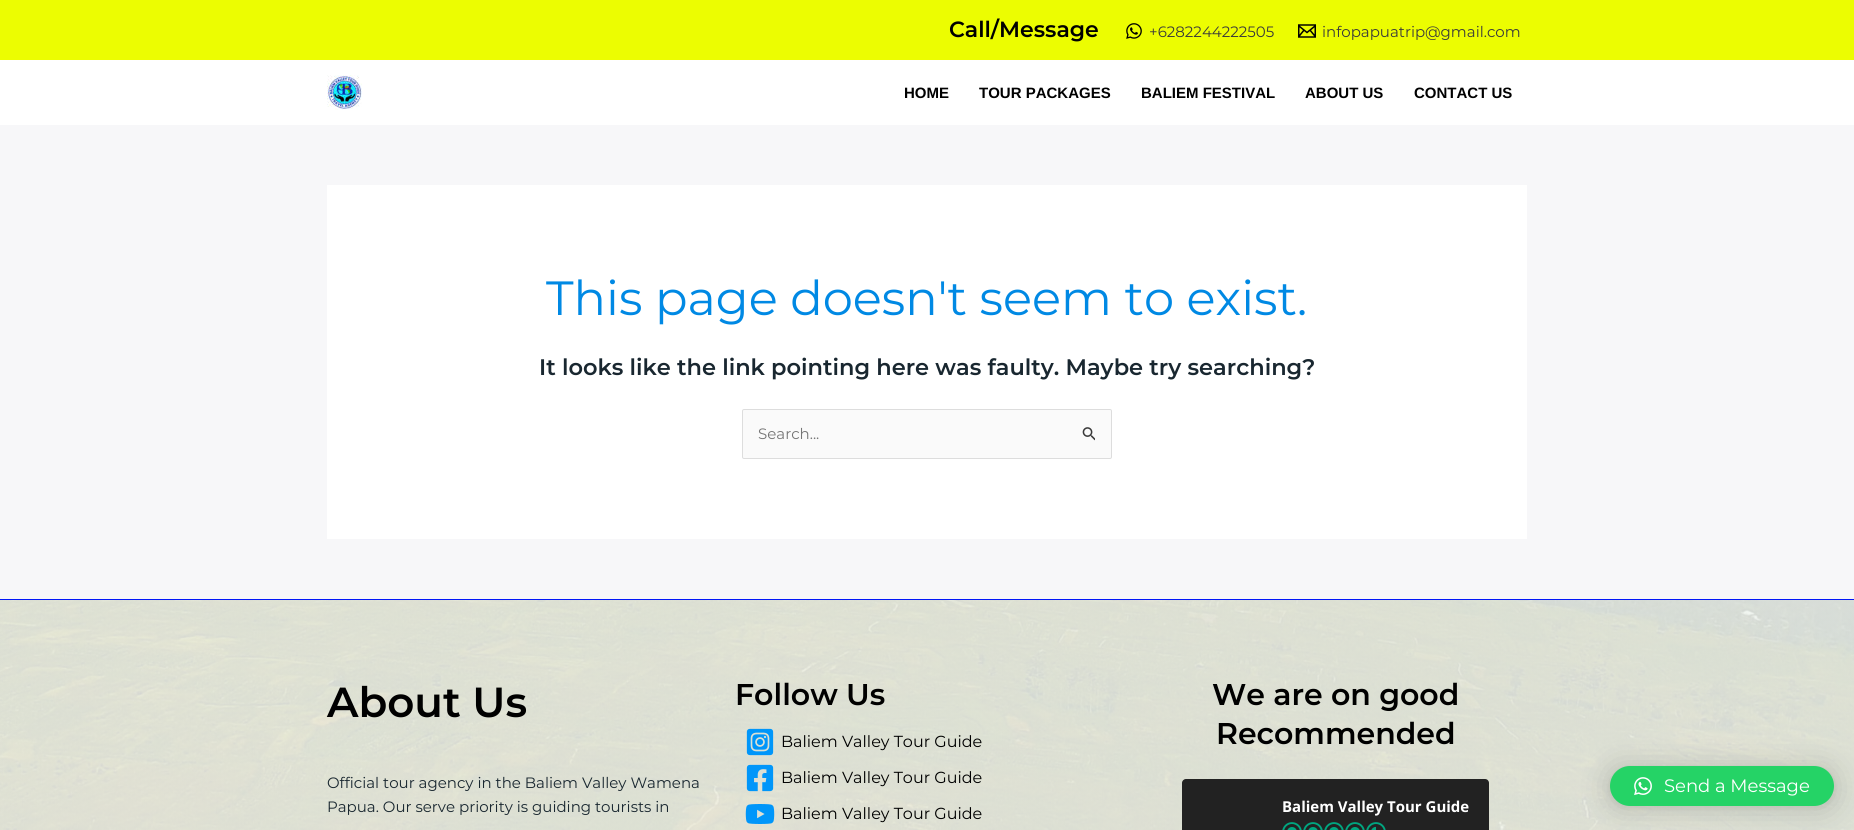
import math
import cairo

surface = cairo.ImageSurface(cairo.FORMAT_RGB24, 1854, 830)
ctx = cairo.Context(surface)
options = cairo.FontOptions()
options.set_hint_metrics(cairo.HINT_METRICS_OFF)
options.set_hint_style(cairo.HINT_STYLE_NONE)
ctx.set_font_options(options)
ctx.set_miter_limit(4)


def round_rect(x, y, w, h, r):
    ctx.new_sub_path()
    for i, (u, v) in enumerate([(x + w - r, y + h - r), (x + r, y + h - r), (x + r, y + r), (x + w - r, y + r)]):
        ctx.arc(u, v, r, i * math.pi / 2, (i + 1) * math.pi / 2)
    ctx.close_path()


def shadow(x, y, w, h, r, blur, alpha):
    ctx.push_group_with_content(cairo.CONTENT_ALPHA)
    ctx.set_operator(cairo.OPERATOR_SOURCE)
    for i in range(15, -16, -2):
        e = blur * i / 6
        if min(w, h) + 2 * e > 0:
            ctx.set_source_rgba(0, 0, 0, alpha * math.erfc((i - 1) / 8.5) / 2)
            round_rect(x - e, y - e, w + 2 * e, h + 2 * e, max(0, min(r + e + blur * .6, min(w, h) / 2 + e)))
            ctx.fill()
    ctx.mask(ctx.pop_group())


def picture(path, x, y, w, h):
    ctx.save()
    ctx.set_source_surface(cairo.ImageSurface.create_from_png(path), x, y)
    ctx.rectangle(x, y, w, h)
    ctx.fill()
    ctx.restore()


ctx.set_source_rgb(0.965, 0.965, 0.973)
ctx.paint()
ctx.set_source_rgb(0.925, 0.992, 0.004)
ctx.rectangle(0, 0, 1854, 60)
ctx.fill()
ctx.select_font_face("Montserrat SemiBold")
ctx.set_font_size(22)
ctx.set_source_rgb(0, 0, 0)
ctx.move_to(949, 37)
ctx.show_text("Call/Message")
picture("img1.png", 1126, 23, 16, 16)
ctx.select_font_face("Montserrat")
ctx.set_font_size(15)
ctx.set_source_rgb(0.227, 0.227, 0.227)
ctx.move_to(1149, 37)
ctx.show_text("+6282244222505")
picture("img2.png", 1298, 24, 18, 14)
ctx.move_to(1322, 37)
ctx.show_text("infopapuatrip@gmail.com")
ctx.set_source_rgb(1, 1, 1)
ctx.rectangle(0, 60, 1854, 65)
ctx.fill()
picture("img3.png", 327, 75, 35, 35)
ctx.select_font_face("Liberation Sans", cairo.FONT_SLANT_NORMAL, cairo.FONT_WEIGHT_BOLD)
ctx.set_source_rgb(0, 0, 0)
ctx.move_to(904, 98)
ctx.show_text("HOME")
ctx.move_to(979, 98)
ctx.show_text("TOUR PACKAGES")
ctx.move_to(1141, 98)
ctx.show_text("BALIEM FESTIVAL")
ctx.move_to(1305, 98)
ctx.show_text("ABOUT US")
ctx.move_to(1414, 98)
ctx.show_text("CONTACT US")
ctx.set_source_rgb(1, 1, 1)
ctx.rectangle(327, 185, 1200, 354)
ctx.fill()
ctx.select_font_face("Montserrat")
ctx.set_font_size(48)
ctx.set_source_rgb(0, 0.537, 0.894)
ctx.move_to(546, 315)
ctx.show_text("This page doesn't seem to exist.")
ctx.select_font_face("Montserrat SemiBold")
ctx.set_font_size(22.5)
ctx.set_source_rgb(0.098, 0.153, 0.188)
ctx.move_to(539, 375)
ctx.show_text("It looks like the link pointing here was faulty. Maybe try searching?")
ctx.set_source_rgb(0.98, 0.98, 0.98)
round_rect(742.5, 409.5, 369, 49, 1.5)
ctx.fill_preserve()
ctx.set_source_rgb(0.867, 0.867, 0.867)
ctx.set_line_width(1)
ctx.stroke()
ctx.select_font_face("Montserrat")
ctx.set_font_size(15)
ctx.set_source_rgb(0.459, 0.459, 0.459)
ctx.move_to(758, 439)
ctx.show_text("Search...")
picture("img4.png", 1082, 427, 13, 14)
picture("img5.png", 0, 599, 1854, 231)
ctx.set_source_rgba(0, 0.082, 0.969, 0.99)
ctx.rectangle(0, 599, 1854, 1)
ctx.fill()
ctx.select_font_face("Montserrat SemiBold")
ctx.set_font_size(42)
ctx.set_source_rgb(0, 0, 0)
ctx.move_to(327, 717)
ctx.show_text("About Us")
ctx.select_font_face("Montserrat")
ctx.set_font_size(15)
ctx.set_source_rgb(0.098, 0.153, 0.188)
ctx.move_to(327, 788)
ctx.show_text("Official tour agency in the Baliem Valley Wamena")
ctx.move_to(327, 812)
ctx.show_text("Papua. Our serve priority is guiding tourists in")
ctx.select_font_face("Montserrat SemiBold")
ctx.set_font_size(30)
ctx.set_source_rgb(0, 0, 0)
ctx.move_to(735, 705)
ctx.show_text("Follow Us")
picture("img6.png", 746, 728, 28, 28)
ctx.select_font_face("Montserrat")
ctx.set_font_size(16)
ctx.move_to(781, 747)
ctx.show_text("Baliem Valley Tour Guide")
picture("img7.png", 746, 764, 28, 28)
ctx.move_to(781, 783)
ctx.show_text("Baliem Valley Tour Guide")
picture("img8.png", 745, 804, 30, 20)
ctx.move_to(781, 819)
ctx.show_text("Baliem Valley Tour Guide")
ctx.select_font_face("Montserrat SemiBold")
ctx.set_font_size(30)
ctx.move_to(1212, 705)
ctx.show_text("We are on good")
ctx.move_to(1216, 744)
ctx.show_text("Recommended")
ctx.set_source_rgb(0.133, 0.133, 0.133)
round_rect(1182, 779, 307, 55, 4)
ctx.fill()
ctx.select_font_face("Open Sans", cairo.FONT_SLANT_NORMAL, cairo.FONT_WEIGHT_BOLD)
ctx.set_font_size(15)
ctx.set_source_rgb(1, 1, 1)
ctx.move_to(1282, 812)
ctx.show_text("Baliem Valley Tour Guide")
picture("img9.png", 1282, 822, 20, 8)
picture("img9.png", 1303, 822, 20, 8)
picture("img9.png", 1324, 822, 20, 8)
picture("img9.png", 1345, 822, 20, 8)
picture("img10.png", 1366, 822, 20, 8)
ctx.set_source_rgb(0, 0, 0)
shadow(1610, 768, 224, 40, 20, 16, 0.16)
shadow(1610, 767, 224, 40, 20, 3, 0.06)
ctx.set_source_rgb(0.145, 0.827, 0.4)
round_rect(1610, 766, 224, 40, 20)
ctx.fill()
picture("img11.png", 1634, 777, 18, 19)
ctx.select_font_face("Montserrat")
ctx.set_font_size(18)
ctx.set_source_rgb(1, 1, 1)
ctx.move_to(1664, 792)
ctx.show_text("Send a Message")
surface.write_to_png("page.png")
